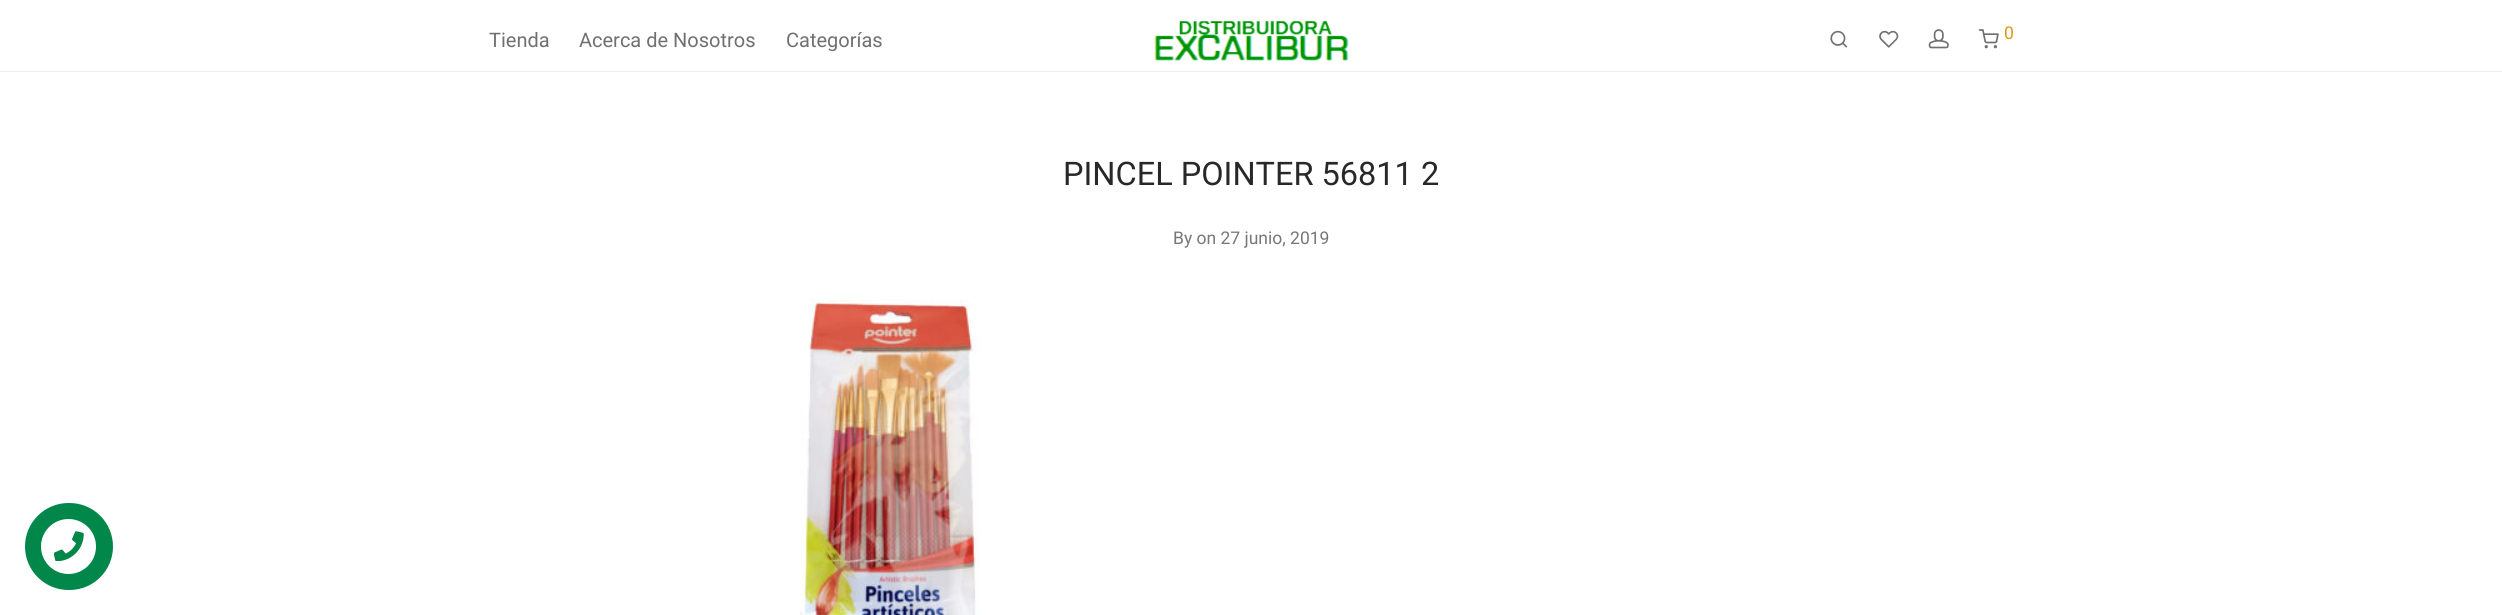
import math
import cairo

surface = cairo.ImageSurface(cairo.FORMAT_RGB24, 2502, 615)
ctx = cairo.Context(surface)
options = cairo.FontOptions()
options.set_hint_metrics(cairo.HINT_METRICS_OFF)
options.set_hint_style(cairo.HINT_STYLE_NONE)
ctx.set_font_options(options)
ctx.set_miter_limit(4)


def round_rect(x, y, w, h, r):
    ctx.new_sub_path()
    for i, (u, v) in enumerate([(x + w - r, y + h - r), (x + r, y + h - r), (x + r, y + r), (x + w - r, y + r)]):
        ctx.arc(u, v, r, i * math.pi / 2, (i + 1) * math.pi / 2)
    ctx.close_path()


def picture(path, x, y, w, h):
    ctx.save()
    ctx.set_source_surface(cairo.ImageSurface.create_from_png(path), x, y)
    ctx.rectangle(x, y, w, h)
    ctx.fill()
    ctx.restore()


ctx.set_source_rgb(1, 1, 1)
ctx.paint()
ctx.set_source_rgb(0.933, 0.933, 0.933)
ctx.rectangle(0, 71, 2502, 1)
ctx.fill()
ctx.select_font_face("Roboto")
ctx.set_font_size(20)
ctx.set_source_rgb(0.439, 0.439, 0.439)
ctx.move_to(489, 47)
ctx.show_text("Tienda")
ctx.move_to(579, 47)
ctx.show_text("Acerca de Nosotros")
ctx.move_to(786, 47)
ctx.show_text("Categorías")
picture("img1.png", 1153, 21, 196, 40)
picture("img2.png", 1830, 30, 17, 18)
picture("img3.png", 1879, 30, 20, 18)
picture("img4.png", 1928, 29, 21, 20)
picture("img5.png", 1978, 29, 21, 20)
ctx.set_font_size(17.5)
ctx.set_source_rgb(0.863, 0.596, 0.078)
ctx.move_to(2004, 39)
ctx.show_text("0")
ctx.set_font_size(32.5)
ctx.set_source_rgb(0.157, 0.157, 0.157)
ctx.move_to(1063, 185)
ctx.show_text("PINCEL POINTER 56811 2")
ctx.set_font_size(17.5)
ctx.set_source_rgb(0.467, 0.467, 0.467)
ctx.move_to(1173, 244)
ctx.show_text("By on 27 junio, 2019")
picture("img6.png", 800, 299, 180, 316)
ctx.set_source_rgb(0, 0.529, 0.286)
round_rect(25, 503, 88, 87, 43.5)
ctx.fill()
ctx.set_source_rgb(1, 1, 1)
ctx.arc(68.5, 546.5, 27.5, 0, 2 * math.pi)
ctx.fill()
picture("img7.png", 54, 531, 30, 30)
surface.write_to_png("page.png")
